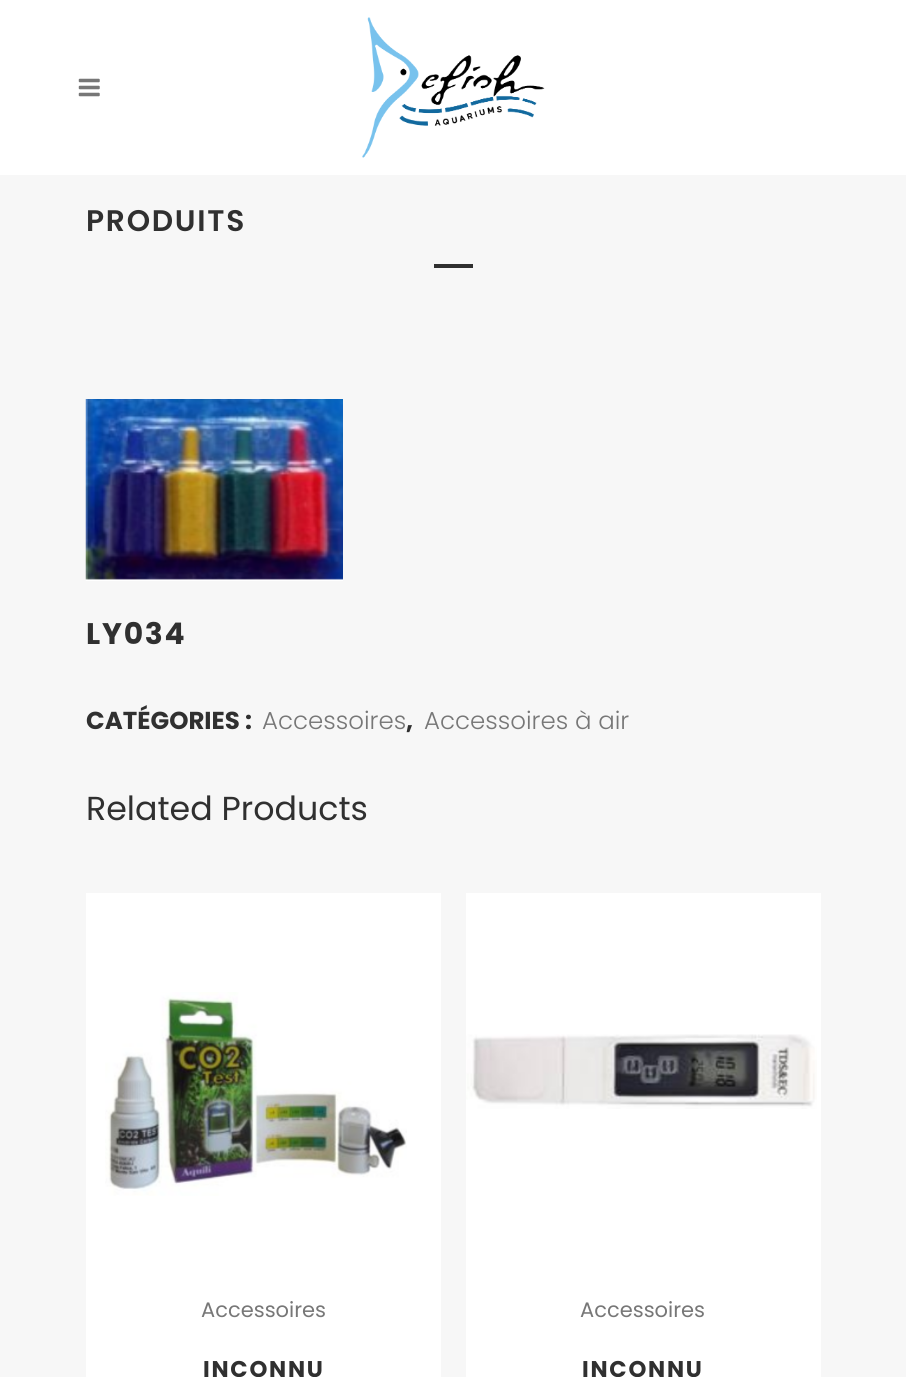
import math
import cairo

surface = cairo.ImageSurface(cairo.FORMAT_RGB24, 906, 1377)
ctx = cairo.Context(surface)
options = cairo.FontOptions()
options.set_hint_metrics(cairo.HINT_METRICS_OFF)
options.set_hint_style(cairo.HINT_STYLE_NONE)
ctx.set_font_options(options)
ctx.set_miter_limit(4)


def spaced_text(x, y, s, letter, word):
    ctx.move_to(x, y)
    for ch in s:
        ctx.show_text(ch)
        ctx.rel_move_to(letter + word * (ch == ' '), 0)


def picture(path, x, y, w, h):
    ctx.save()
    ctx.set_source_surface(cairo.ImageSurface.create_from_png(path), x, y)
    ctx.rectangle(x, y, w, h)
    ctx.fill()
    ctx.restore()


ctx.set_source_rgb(0.965, 0.965, 0.965)
ctx.paint()
ctx.set_source_rgb(1, 1, 1)
ctx.rectangle(0, 0, 906, 175)
ctx.fill()
picture("img1.png", 78, 78, 22, 19)
picture("img2.png", 362, 17, 183, 141)
ctx.select_font_face("Poppins SemiBold")
ctx.set_font_size(29.75)
ctx.set_source_rgb(0.188, 0.188, 0.188)
spaced_text(86, 231, "PRODUITS", 1.75, 0)
ctx.rectangle(434, 264, 39, 4)
ctx.fill()
picture("img3.png", 85, 399, 258, 182)
ctx.select_font_face("Poppins", cairo.FONT_SLANT_NORMAL, cairo.FONT_WEIGHT_BOLD)
spaced_text(86, 644, "LY034", 1.75, 0)
ctx.set_font_size(24.5)
ctx.move_to(86, 729)
ctx.show_text("CATÉGORIES :")
ctx.select_font_face("Poppins Light")
ctx.set_source_rgb(0.467, 0.467, 0.467)
ctx.move_to(262, 729)
ctx.show_text("Accessoires")
ctx.select_font_face("Poppins", cairo.FONT_SLANT_NORMAL, cairo.FONT_WEIGHT_BOLD)
ctx.set_source_rgb(0.188, 0.188, 0.188)
ctx.move_to(406, 729)
ctx.show_text(",")
ctx.select_font_face("Poppins Light")
ctx.set_source_rgb(0.467, 0.467, 0.467)
ctx.move_to(424, 729)
ctx.show_text("Accessoires à air")
ctx.select_font_face("Poppins")
ctx.set_font_size(33.25)
ctx.set_source_rgb(0.188, 0.188, 0.188)
ctx.move_to(86, 820)
ctx.show_text("Related Products")
ctx.set_source_rgb(1, 1, 1)
ctx.rectangle(86, 893, 355, 484)
ctx.fill()
picture("img4.png", 105, 992, 302, 204)
ctx.set_font_size(21)
ctx.set_source_rgb(0.467, 0.467, 0.467)
ctx.move_to(201, 1317)
ctx.show_text("Accessoires")
ctx.select_font_face("Poppins", cairo.FONT_SLANT_NORMAL, cairo.FONT_WEIGHT_BOLD)
ctx.set_font_size(22.75)
ctx.set_source_rgb(0.188, 0.188, 0.188)
spaced_text(203, 1377, "INCONNU", 1.75, 0)
ctx.set_source_rgb(1, 1, 1)
ctx.rectangle(466, 893, 355, 484)
ctx.fill()
picture("img5.png", 466, 1034, 351, 75)
ctx.select_font_face("Poppins")
ctx.set_font_size(21)
ctx.set_source_rgb(0.467, 0.467, 0.467)
ctx.move_to(580, 1317)
ctx.show_text("Accessoires")
ctx.select_font_face("Poppins", cairo.FONT_SLANT_NORMAL, cairo.FONT_WEIGHT_BOLD)
ctx.set_font_size(22.75)
ctx.set_source_rgb(0.188, 0.188, 0.188)
spaced_text(582, 1377, "INCONNU", 1.75, 0)
surface.write_to_png("page.png")
